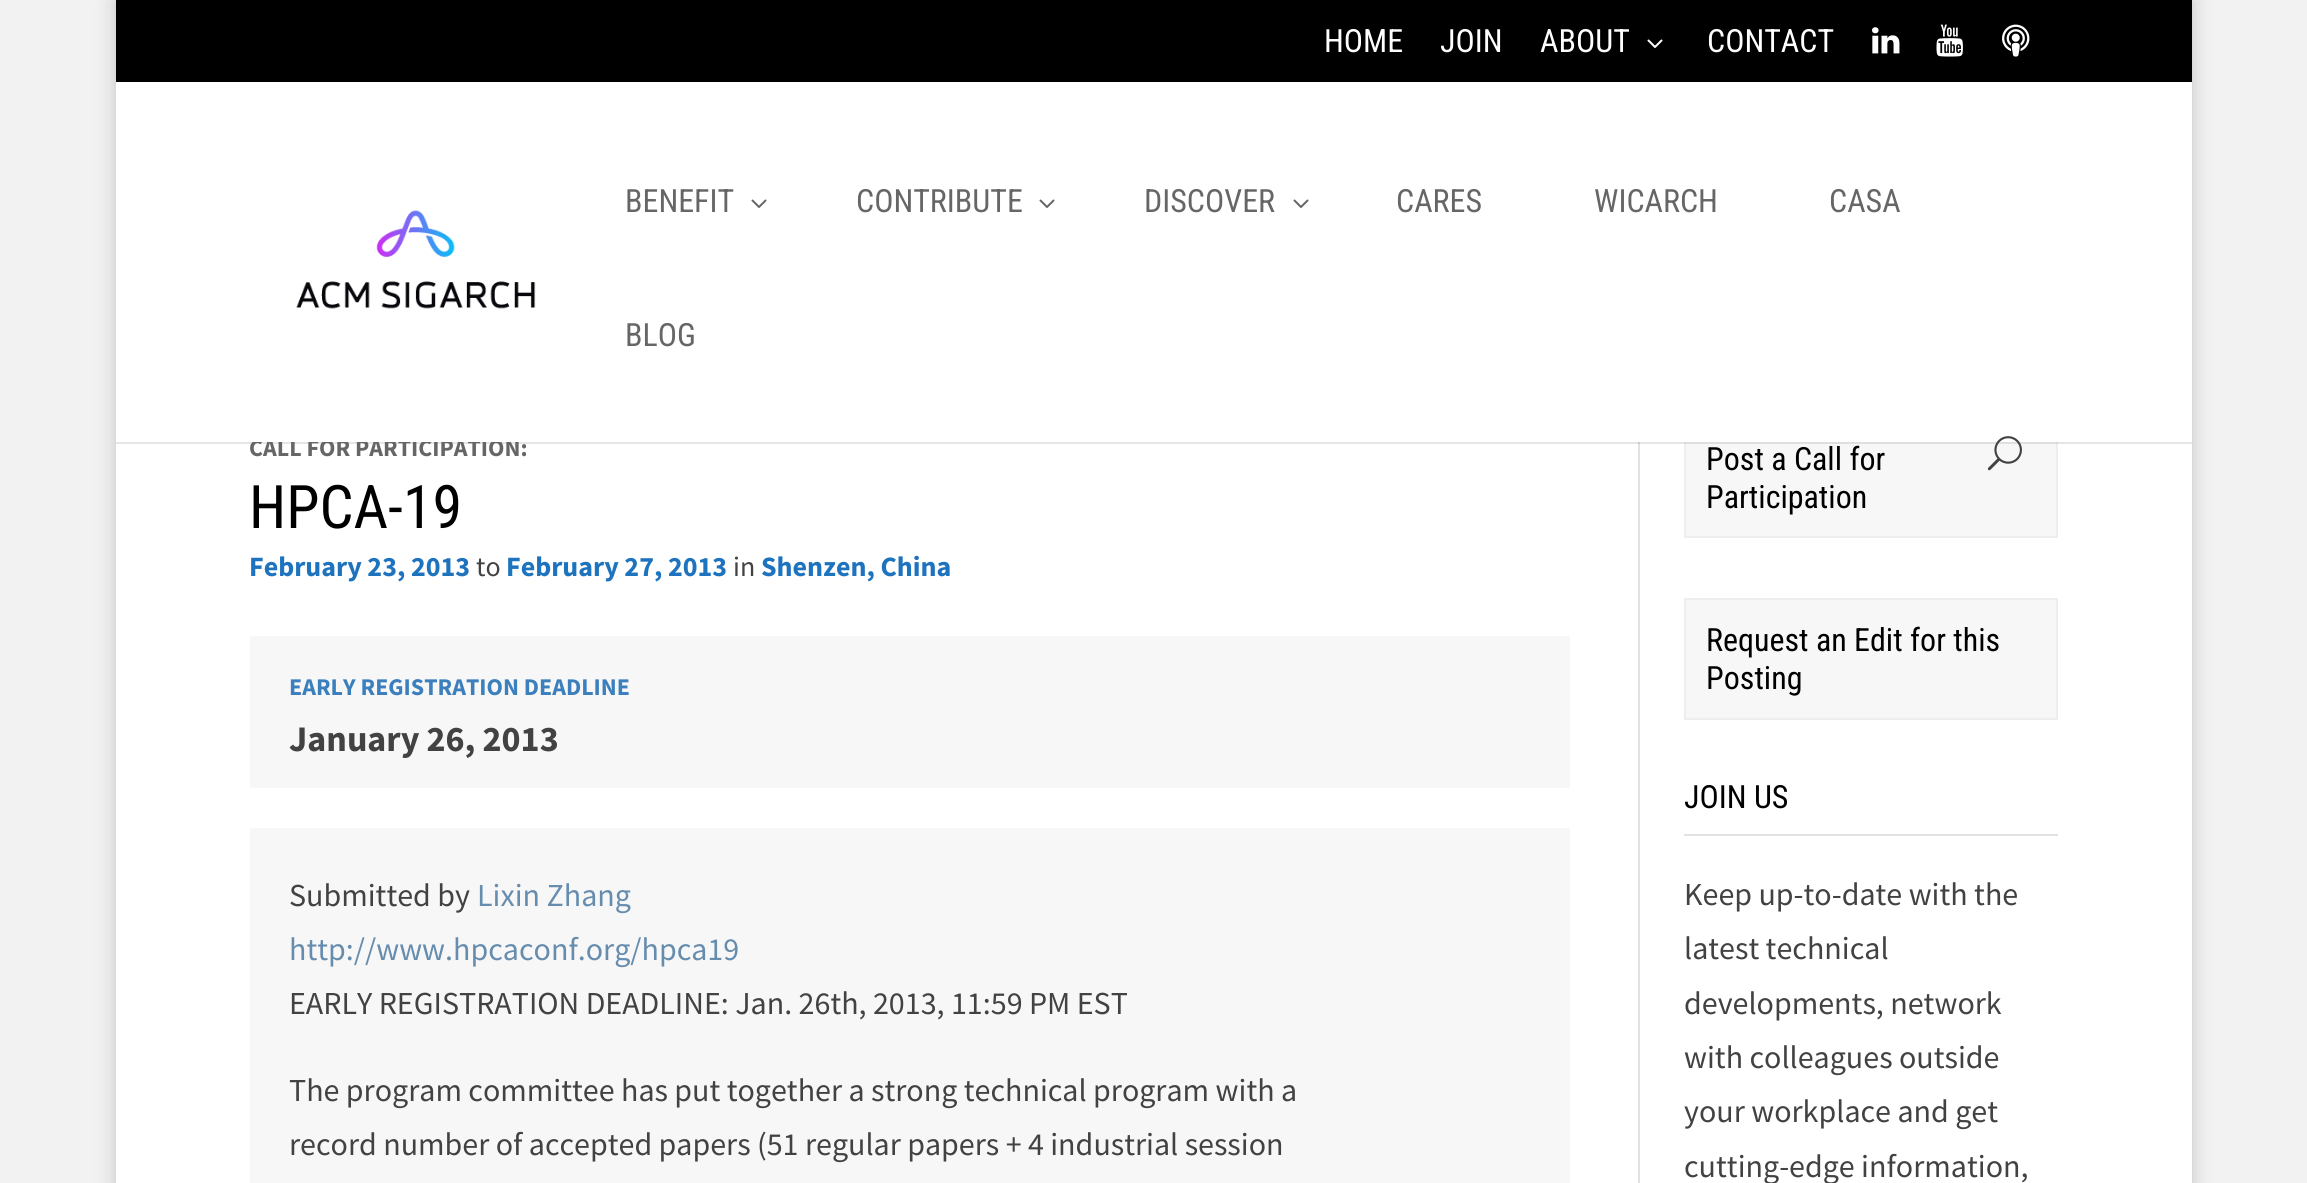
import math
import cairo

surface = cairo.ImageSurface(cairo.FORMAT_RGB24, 2307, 1183)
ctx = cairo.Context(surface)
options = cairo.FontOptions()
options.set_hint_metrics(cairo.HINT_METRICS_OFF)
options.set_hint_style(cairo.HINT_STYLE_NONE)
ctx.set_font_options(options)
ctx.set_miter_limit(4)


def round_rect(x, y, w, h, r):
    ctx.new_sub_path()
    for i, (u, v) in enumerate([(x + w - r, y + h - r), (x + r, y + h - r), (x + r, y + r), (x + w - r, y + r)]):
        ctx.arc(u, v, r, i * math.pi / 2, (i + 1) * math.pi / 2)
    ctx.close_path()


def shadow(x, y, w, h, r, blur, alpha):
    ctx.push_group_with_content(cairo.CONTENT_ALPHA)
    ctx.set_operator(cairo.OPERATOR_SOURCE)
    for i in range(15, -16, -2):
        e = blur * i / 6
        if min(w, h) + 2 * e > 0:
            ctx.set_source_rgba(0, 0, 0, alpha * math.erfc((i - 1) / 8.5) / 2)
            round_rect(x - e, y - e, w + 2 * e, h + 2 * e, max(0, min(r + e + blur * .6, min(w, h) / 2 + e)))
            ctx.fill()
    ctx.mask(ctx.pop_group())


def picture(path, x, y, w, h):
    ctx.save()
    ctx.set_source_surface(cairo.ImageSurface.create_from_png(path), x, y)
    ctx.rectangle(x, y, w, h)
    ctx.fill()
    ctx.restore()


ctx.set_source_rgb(0.949, 0.949, 0.949)
ctx.paint()
ctx.set_source_rgb(0, 0, 0)
shadow(116, 0, 2076, 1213, 0, 10, 0.2)
ctx.set_source_rgb(0, 0, 0)
ctx.rectangle(116, 0, 2076, 82)
ctx.fill()
ctx.select_font_face("Roboto Condensed")
ctx.set_font_size(32)
ctx.set_source_rgb(1, 1, 1)
ctx.move_to(1324, 52)
ctx.show_text("HOME")
ctx.move_to(1440, 52)
ctx.show_text("JOIN")
ctx.move_to(1540, 52)
ctx.show_text("ABOUT")
picture("img1.png", 1647, 39, 16, 9)
ctx.move_to(1707, 52)
ctx.show_text("CONTACT")
picture("img2.png", 1872, 27, 28, 27)
picture("img3.png", 1936, 24, 27, 33)
picture("img4.png", 2002, 24, 28, 33)
ctx.rectangle(116, 442, 2076, 741)
ctx.fill()
ctx.set_source_rgb(0.965, 0.965, 0.965)
ctx.rectangle(1686, 442, 370, 94)
ctx.fill()
ctx.rectangle(1685, 419, 372, 118)
ctx.set_source_rgb(0.933, 0.933, 0.933)
ctx.stroke()
ctx.set_source_rgb(0.886, 0.886, 0.886)
ctx.rectangle(1638, 442, 2, 741)
ctx.fill()
ctx.set_source_rgba(0, 0, 0, 0.1)
ctx.rectangle(116, 442, 2076, 2)
ctx.fill()
ctx.select_font_face("Source Sans Pro", cairo.FONT_SLANT_NORMAL, cairo.FONT_WEIGHT_BOLD)
ctx.set_font_size(24)
ctx.set_source_rgb(0.4, 0.4, 0.4)
ctx.move_to(249, 456)
ctx.show_text("CALL FOR PARTICIPATION:")
ctx.set_source_rgb(1, 1, 1)
ctx.rectangle(116, 82, 2076, 360)
ctx.fill()
picture("img5.png", 296, 210, 240, 99)
ctx.select_font_face("Roboto Condensed")
ctx.set_font_size(32)
ctx.set_source_rgb(0.4, 0.4, 0.4)
ctx.move_to(625, 212)
ctx.show_text("BENEFIT")
picture("img6.png", 751, 199, 16, 9)
ctx.move_to(856, 212)
ctx.show_text("CONTRIBUTE")
picture("img6.png", 1039, 199, 16, 9)
ctx.move_to(1144, 212)
ctx.show_text("DISCOVER")
picture("img6.png", 1293, 199, 16, 9)
ctx.move_to(1396, 212)
ctx.show_text("CARES")
ctx.move_to(1594, 212)
ctx.show_text("WICARCH")
ctx.move_to(1829, 212)
ctx.show_text("CASA")
ctx.move_to(625, 346)
ctx.show_text("BLOG")
picture("img7.png", 1987, 436, 35, 35)
ctx.set_font_size(60)
ctx.set_source_rgb(0, 0, 0)
ctx.move_to(249, 528)
ctx.show_text("HPCA-19")
ctx.select_font_face("Source Sans Pro", cairo.FONT_SLANT_NORMAL, cairo.FONT_WEIGHT_BOLD)
ctx.set_font_size(28)
ctx.set_source_rgb(0.118, 0.451, 0.745)
ctx.move_to(249, 576)
ctx.show_text("February 23, 2013")
ctx.select_font_face("Source Sans Pro")
ctx.set_source_rgb(0.259, 0.259, 0.259)
ctx.move_to(476, 576)
ctx.show_text("to")
ctx.select_font_face("Source Sans Pro", cairo.FONT_SLANT_NORMAL, cairo.FONT_WEIGHT_BOLD)
ctx.set_source_rgb(0.118, 0.451, 0.745)
ctx.move_to(506, 576)
ctx.show_text("February 27, 2013")
ctx.select_font_face("Source Sans Pro")
ctx.set_source_rgb(0.259, 0.259, 0.259)
ctx.move_to(733, 576)
ctx.show_text("in")
ctx.select_font_face("Source Sans Pro", cairo.FONT_SLANT_NORMAL, cairo.FONT_WEIGHT_BOLD)
ctx.set_source_rgb(0.118, 0.451, 0.745)
ctx.move_to(761, 576)
ctx.show_text("Shenzen, China")
ctx.set_source_rgb(0.965, 0.965, 0.965)
ctx.rectangle(250, 636, 1320, 152)
ctx.fill()
ctx.set_font_size(24)
ctx.set_source_rgb(0.231, 0.502, 0.741)
ctx.move_to(289, 695)
ctx.show_text("EARLY REGISTRATION DEADLINE")
ctx.set_font_size(36)
ctx.set_source_rgb(0.259, 0.259, 0.259)
ctx.move_to(289, 751)
ctx.show_text("January 26, 2013")
ctx.set_source_rgb(0.965, 0.965, 0.965)
ctx.rectangle(250, 828, 1320, 355)
ctx.fill()
ctx.select_font_face("Source Sans Pro")
ctx.set_font_size(32)
ctx.set_source_rgb(0.259, 0.259, 0.259)
ctx.move_to(289, 906)
ctx.show_text("Submitted by")
ctx.set_source_rgb(0.4, 0.549, 0.682)
ctx.move_to(477, 906)
ctx.show_text("Lixin Zhang")
ctx.move_to(289, 960)
ctx.show_text("http://www.hpcaconf.org/hpca19")
ctx.set_source_rgb(0.259, 0.259, 0.259)
ctx.move_to(289, 1014)
ctx.show_text("EARLY REGISTRATION DEADLINE: Jan. 26th, 2013, 11:59 PM EST")
ctx.move_to(289, 1101)
ctx.show_text("The program committee has put together a strong technical program with a")
ctx.move_to(289, 1155)
ctx.show_text("record number of accepted papers (51 regular papers + 4 industrial session")
ctx.select_font_face("Roboto Condensed")
ctx.set_source_rgb(0, 0, 0)
ctx.move_to(1706, 470)
ctx.show_text("Post a Call for")
ctx.move_to(1706, 508)
ctx.show_text("Participation")
ctx.set_source_rgb(0.965, 0.965, 0.965)
ctx.rectangle(1685, 599, 372, 120)
ctx.fill_preserve()
ctx.set_source_rgb(0.933, 0.933, 0.933)
ctx.stroke()
ctx.set_source_rgb(0, 0, 0)
ctx.move_to(1706, 651)
ctx.show_text("Request an Edit for this")
ctx.move_to(1706, 689)
ctx.show_text("Posting")
ctx.set_source_rgb(0.886, 0.886, 0.886)
ctx.rectangle(1684, 834, 374, 2)
ctx.fill()
ctx.set_source_rgb(0, 0, 0)
ctx.move_to(1684, 808)
ctx.show_text("JOIN US")
ctx.select_font_face("Source Sans Pro")
ctx.set_source_rgb(0.259, 0.259, 0.259)
ctx.move_to(1684, 905)
ctx.show_text("Keep up-to-date with the")
ctx.move_to(1684, 959)
ctx.show_text("latest technical")
ctx.move_to(1684, 1014)
ctx.show_text("developments, network")
ctx.move_to(1684, 1068)
ctx.show_text("with colleagues outside")
ctx.move_to(1684, 1122)
ctx.show_text("your workplace and get")
ctx.move_to(1684, 1177)
ctx.show_text("cutting-edge information,")
surface.write_to_png("page.png")
